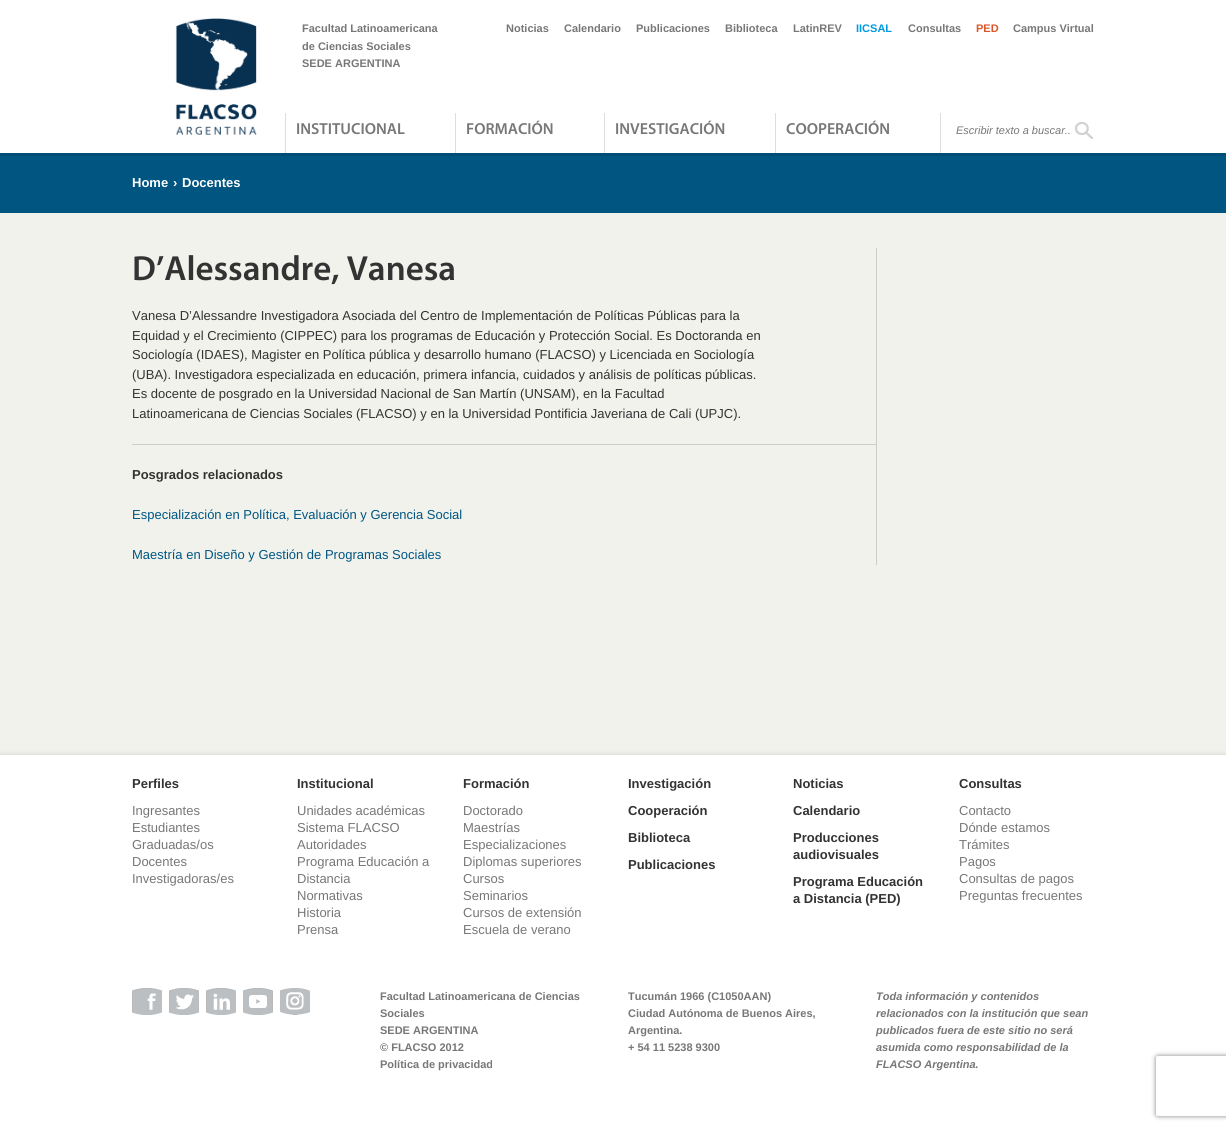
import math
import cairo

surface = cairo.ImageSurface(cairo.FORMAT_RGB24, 1226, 1130)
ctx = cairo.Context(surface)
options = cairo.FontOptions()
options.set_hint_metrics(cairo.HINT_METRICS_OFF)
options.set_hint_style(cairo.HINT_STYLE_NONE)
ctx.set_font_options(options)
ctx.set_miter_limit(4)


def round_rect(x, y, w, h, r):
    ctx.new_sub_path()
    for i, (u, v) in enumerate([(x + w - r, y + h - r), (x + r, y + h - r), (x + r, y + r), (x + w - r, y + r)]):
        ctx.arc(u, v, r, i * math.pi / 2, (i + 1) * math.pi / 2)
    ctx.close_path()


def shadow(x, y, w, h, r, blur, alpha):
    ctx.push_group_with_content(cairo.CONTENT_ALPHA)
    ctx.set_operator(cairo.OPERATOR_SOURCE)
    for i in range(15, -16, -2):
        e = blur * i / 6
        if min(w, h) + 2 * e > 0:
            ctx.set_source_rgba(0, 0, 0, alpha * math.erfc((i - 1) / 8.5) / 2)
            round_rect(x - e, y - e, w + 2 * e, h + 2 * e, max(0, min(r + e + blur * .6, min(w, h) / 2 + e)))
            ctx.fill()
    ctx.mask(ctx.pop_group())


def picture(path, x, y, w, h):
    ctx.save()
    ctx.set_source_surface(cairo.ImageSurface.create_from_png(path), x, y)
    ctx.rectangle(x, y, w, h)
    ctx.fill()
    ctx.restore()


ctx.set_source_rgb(0.945, 0.949, 0.925)
ctx.paint()
ctx.set_source_rgb(1, 1, 1)
ctx.rectangle(0, 0, 1226, 153)
ctx.fill()
picture("img1.png", 175, 18, 82, 117)
ctx.select_font_face("Liberation Sans", cairo.FONT_SLANT_NORMAL, cairo.FONT_WEIGHT_BOLD)
ctx.set_font_size(11)
ctx.set_source_rgb(0.467, 0.467, 0.467)
ctx.move_to(302, 32)
ctx.show_text("Facultad Latinoamericana")
ctx.move_to(302, 50)
ctx.show_text("de Ciencias Sociales")
ctx.move_to(302, 67)
ctx.show_text("SEDE ARGENTINA")
ctx.move_to(506, 32)
ctx.show_text("Noticias")
ctx.move_to(564, 32)
ctx.show_text("Calendario")
ctx.move_to(636, 32)
ctx.show_text("Publicaciones")
ctx.move_to(725, 32)
ctx.show_text("Biblioteca")
ctx.move_to(793, 32)
ctx.show_text("LatinREV")
ctx.set_source_rgb(0, 0.604, 0.871)
ctx.move_to(856, 32)
ctx.show_text("IICSAL")
ctx.set_source_rgb(0.467, 0.467, 0.467)
ctx.move_to(908, 32)
ctx.show_text("Consultas")
ctx.set_source_rgb(0.863, 0.345, 0.165)
ctx.move_to(976, 32)
ctx.show_text("PED")
ctx.set_source_rgb(0.467, 0.467, 0.467)
ctx.move_to(1013, 32)
ctx.show_text("Campus Virtual")
ctx.set_source_rgb(0.871, 0.875, 0.855)
ctx.rectangle(285, 113, 1, 40)
ctx.fill()
ctx.select_font_face("myriad SemiBold")
ctx.set_font_size(16)
ctx.set_source_rgb(0.467, 0.467, 0.467)
ctx.move_to(296, 134)
ctx.show_text("INSTITUCIONAL")
ctx.set_source_rgb(0.871, 0.875, 0.855)
ctx.rectangle(455, 113, 1, 40)
ctx.fill()
ctx.set_source_rgb(0.467, 0.467, 0.467)
ctx.move_to(466, 134)
ctx.show_text("FORMACIÓN")
ctx.set_source_rgb(0.871, 0.875, 0.855)
ctx.rectangle(604, 113, 1, 40)
ctx.fill()
ctx.set_source_rgb(0.467, 0.467, 0.467)
ctx.move_to(615, 134)
ctx.show_text("INVESTIGACIÓN")
ctx.set_source_rgb(0.871, 0.875, 0.855)
ctx.rectangle(775, 113, 1, 40)
ctx.fill()
ctx.set_source_rgb(0.467, 0.467, 0.467)
ctx.move_to(786, 134)
ctx.show_text("COOPERACIÓN")
ctx.set_source_rgb(0.871, 0.875, 0.855)
ctx.rectangle(940, 113, 1, 40)
ctx.fill()
ctx.select_font_face("Liberation Sans", cairo.FONT_SLANT_ITALIC)
ctx.set_font_size(11)
ctx.set_source_rgb(0.467, 0.467, 0.467)
ctx.move_to(956, 134)
ctx.show_text("Escribir texto a buscar..")
picture("img2.png", 1075, 122, 18, 17)
ctx.set_source_rgb(0, 0.302, 0.459)
ctx.rectangle(0, 153, 1226, 3)
ctx.fill()
ctx.set_source_rgb(0, 0.333, 0.506)
ctx.rectangle(0, 156, 1226, 57)
ctx.fill()
ctx.select_font_face("Liberation Sans", cairo.FONT_SLANT_NORMAL, cairo.FONT_WEIGHT_BOLD)
ctx.set_font_size(13)
ctx.set_source_rgb(1, 1, 1)
ctx.move_to(132, 187)
ctx.show_text("Home")
ctx.move_to(173, 187)
ctx.show_text("›")
ctx.move_to(182, 187)
ctx.show_text("Docentes")
ctx.select_font_face("myriad SemiBold")
ctx.set_font_size(35)
ctx.set_source_rgb(0.2, 0.2, 0.2)
ctx.move_to(132, 280)
ctx.show_text("D’Alessandre, Vanesa")
ctx.select_font_face("Liberation Sans")
ctx.set_font_size(13)
ctx.move_to(132, 320)
ctx.show_text("Vanesa D’Alessandre Investigadora Asociada del Centro de Implementación de Políticas Públicas para la")
ctx.move_to(132, 340)
ctx.show_text("Equidad y el Crecimiento (CIPPEC) para los programas de Educación y Protección Social. Es Doctoranda en")
ctx.move_to(132, 359)
ctx.show_text("Sociología (IDAES), Magister en Política pública y desarrollo humano (FLACSO) y Licenciada en Sociología")
ctx.move_to(132, 379)
ctx.show_text("(UBA). Investigadora especializada en educación, primera infancia, cuidados y análisis de políticas públicas.")
ctx.move_to(132, 398)
ctx.show_text("Es docente de posgrado en la Universidad Nacional de San Martín (UNSAM), en la Facultad")
ctx.move_to(132, 418)
ctx.show_text("Latinoamericana de Ciencias Sociales (FLACSO) y en la Universidad Pontificia Javeriana de Cali (UPJC).")
ctx.set_source_rgb(0.8, 0.8, 0.8)
ctx.rectangle(132, 444, 744, 1)
ctx.fill()
ctx.select_font_face("Liberation Sans", cairo.FONT_SLANT_NORMAL, cairo.FONT_WEIGHT_BOLD)
ctx.set_source_rgb(0.2, 0.2, 0.2)
ctx.move_to(132, 479)
ctx.show_text("Posgrados relacionados")
ctx.select_font_face("Liberation Sans")
ctx.set_source_rgb(0, 0.333, 0.506)
ctx.move_to(132, 519)
ctx.show_text("Especialización en Política, Evaluación y Gerencia Social")
ctx.move_to(132, 559)
ctx.show_text("Maestría en Diseño y Gestión de Programas Sociales")
ctx.set_source_rgb(0.8, 0.8, 0.8)
ctx.rectangle(876, 248, 1, 317)
ctx.fill()
ctx.set_source_rgb(0.8, 0.8, 0.8)
shadow(0, 755, 1226, 375, 0, 2.5, 1)
ctx.set_source_rgb(1, 1, 1)
ctx.rectangle(0, 755, 1226, 375)
ctx.fill()
ctx.select_font_face("Liberation Sans", cairo.FONT_SLANT_NORMAL, cairo.FONT_WEIGHT_BOLD)
ctx.set_source_rgb(0.2, 0.2, 0.2)
ctx.move_to(132, 788)
ctx.show_text("Perfiles")
ctx.select_font_face("Liberation Sans")
ctx.set_source_rgb(0.467, 0.467, 0.467)
ctx.move_to(132, 815)
ctx.show_text("Ingresantes")
ctx.move_to(132, 832)
ctx.show_text("Estudiantes")
ctx.move_to(132, 849)
ctx.show_text("Graduadas/os")
ctx.move_to(132, 866)
ctx.show_text("Docentes")
ctx.move_to(132, 883)
ctx.show_text("Investigadoras/es")
ctx.select_font_face("Liberation Sans", cairo.FONT_SLANT_NORMAL, cairo.FONT_WEIGHT_BOLD)
ctx.set_source_rgb(0.2, 0.2, 0.2)
ctx.move_to(297, 788)
ctx.show_text("Institucional")
ctx.select_font_face("Liberation Sans")
ctx.set_source_rgb(0.467, 0.467, 0.467)
ctx.move_to(297, 815)
ctx.show_text("Unidades académicas")
ctx.move_to(297, 832)
ctx.show_text("Sistema FLACSO")
ctx.move_to(297, 849)
ctx.show_text("Autoridades")
ctx.move_to(297, 866)
ctx.show_text("Programa Educación a")
ctx.move_to(297, 883)
ctx.show_text("Distancia")
ctx.move_to(297, 900)
ctx.show_text("Normativas")
ctx.move_to(297, 917)
ctx.show_text("Historia")
ctx.move_to(297, 934)
ctx.show_text("Prensa")
ctx.select_font_face("Liberation Sans", cairo.FONT_SLANT_NORMAL, cairo.FONT_WEIGHT_BOLD)
ctx.set_source_rgb(0.2, 0.2, 0.2)
ctx.move_to(463, 788)
ctx.show_text("Formación")
ctx.select_font_face("Liberation Sans")
ctx.set_source_rgb(0.467, 0.467, 0.467)
ctx.move_to(463, 815)
ctx.show_text("Doctorado")
ctx.move_to(463, 832)
ctx.show_text("Maestrías")
ctx.move_to(463, 849)
ctx.show_text("Especializaciones")
ctx.move_to(463, 866)
ctx.show_text("Diplomas superiores")
ctx.move_to(463, 883)
ctx.show_text("Cursos")
ctx.move_to(463, 900)
ctx.show_text("Seminarios")
ctx.move_to(463, 917)
ctx.show_text("Cursos de extensión")
ctx.move_to(463, 934)
ctx.show_text("Escuela de verano")
ctx.select_font_face("Liberation Sans", cairo.FONT_SLANT_NORMAL, cairo.FONT_WEIGHT_BOLD)
ctx.set_source_rgb(0.2, 0.2, 0.2)
ctx.move_to(628, 788)
ctx.show_text("Investigación")
ctx.move_to(628, 815)
ctx.show_text("Cooperación")
ctx.move_to(628, 842)
ctx.show_text("Biblioteca")
ctx.move_to(628, 869)
ctx.show_text("Publicaciones")
ctx.move_to(793, 788)
ctx.show_text("Noticias")
ctx.move_to(793, 815)
ctx.show_text("Calendario")
ctx.move_to(793, 842)
ctx.show_text("Producciones")
ctx.move_to(793, 859)
ctx.show_text("audiovisuales")
ctx.move_to(793, 886)
ctx.show_text("Programa Educación")
ctx.move_to(793, 903)
ctx.show_text("a Distancia (PED)")
ctx.move_to(959, 788)
ctx.show_text("Consultas")
ctx.select_font_face("Liberation Sans")
ctx.set_source_rgb(0.467, 0.467, 0.467)
ctx.move_to(959, 815)
ctx.show_text("Contacto")
ctx.move_to(959, 832)
ctx.show_text("Dónde estamos")
ctx.move_to(959, 849)
ctx.show_text("Trámites")
ctx.move_to(959, 866)
ctx.show_text("Pagos")
ctx.move_to(959, 883)
ctx.show_text("Consultas de pagos")
ctx.move_to(959, 900)
ctx.show_text("Preguntas frecuentes")
picture("img3.png", 132, 988, 30, 27)
picture("img4.png", 169, 988, 30, 27)
picture("img5.png", 206, 988, 30, 27)
picture("img6.png", 243, 988, 30, 27)
picture("img7.png", 280, 988, 30, 27)
ctx.select_font_face("Liberation Sans", cairo.FONT_SLANT_NORMAL, cairo.FONT_WEIGHT_BOLD)
ctx.set_font_size(11)
ctx.move_to(380, 1000)
ctx.show_text("Facultad Latinoamericana de Ciencias")
ctx.move_to(380, 1017)
ctx.show_text("Sociales")
ctx.move_to(380, 1034)
ctx.show_text("SEDE ARGENTINA")
ctx.move_to(380, 1051)
ctx.show_text("© FLACSO 2012")
ctx.move_to(380, 1068)
ctx.show_text("Política de privacidad")
ctx.move_to(628, 1000)
ctx.show_text("Tucumán 1966 (C1050AAN)")
ctx.move_to(628, 1017)
ctx.show_text("Ciudad Autónoma de Buenos Aires,")
ctx.move_to(628, 1034)
ctx.show_text("Argentina.")
ctx.move_to(628, 1051)
ctx.show_text("+ 54 11 5238 9300")
ctx.select_font_face("Liberation Sans", cairo.FONT_SLANT_ITALIC, cairo.FONT_WEIGHT_BOLD)
ctx.move_to(876, 1000)
ctx.show_text("Toda información y contenidos")
ctx.move_to(876, 1017)
ctx.show_text("relacionados con la institución que sean")
ctx.move_to(876, 1034)
ctx.show_text("publicados fuera de este sitio no será")
ctx.move_to(876, 1051)
ctx.show_text("asumida como responsabilidad de la")
ctx.move_to(876, 1068)
ctx.show_text("FLACSO Argentina.")
ctx.save()
ctx.set_fill_rule(cairo.FILL_RULE_EVEN_ODD)
ctx.new_path()
ctx.move_to(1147, 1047)
ctx.line_to(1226, 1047)
ctx.line_to(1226, 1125)
ctx.line_to(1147, 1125)
ctx.close_path()
ctx.move_to(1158, 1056)
ctx.line_to(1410, 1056)
ctx.curve_to(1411, 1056, 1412, 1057, 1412, 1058)
ctx.line_to(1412, 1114)
ctx.curve_to(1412, 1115, 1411, 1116, 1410, 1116)
ctx.line_to(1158, 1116)
ctx.curve_to(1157, 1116, 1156, 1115, 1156, 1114)
ctx.line_to(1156, 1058)
ctx.curve_to(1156, 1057, 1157, 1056, 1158, 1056)
ctx.close_path()
ctx.clip()
ctx.set_source_rgb(0.502, 0.502, 0.502)
shadow(1156, 1056, 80, 60, 2, 2.5, 1)
ctx.restore()
surface.write_to_png("page.png")
